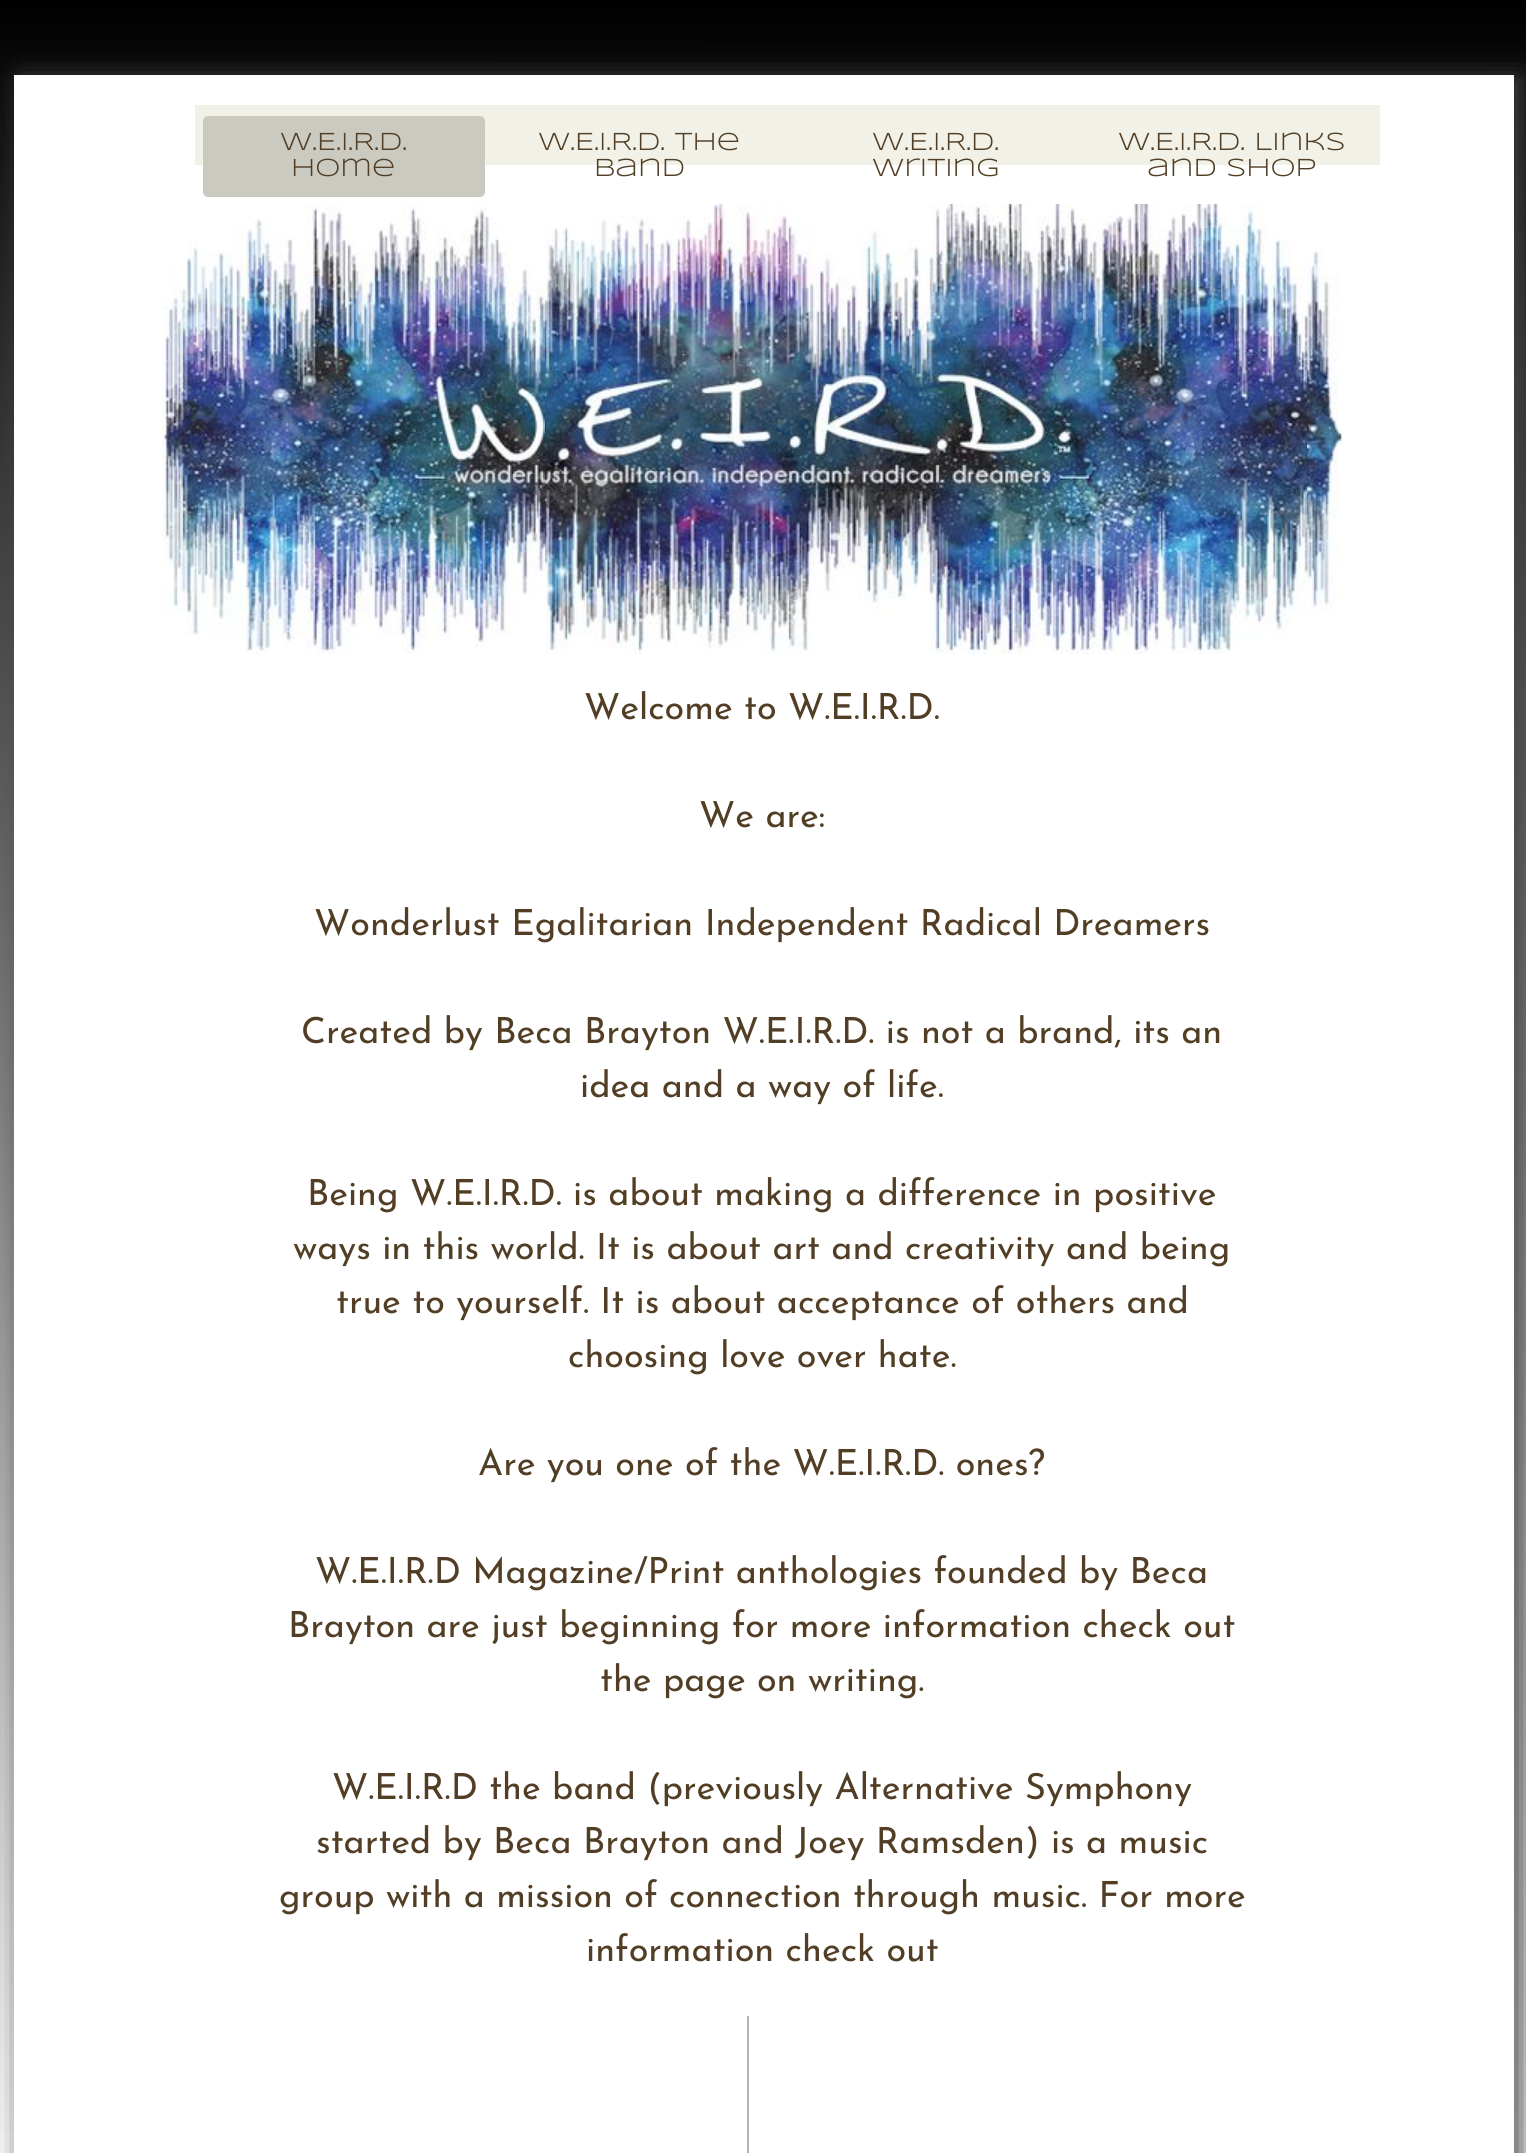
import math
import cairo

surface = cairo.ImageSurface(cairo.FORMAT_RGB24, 1526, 2153)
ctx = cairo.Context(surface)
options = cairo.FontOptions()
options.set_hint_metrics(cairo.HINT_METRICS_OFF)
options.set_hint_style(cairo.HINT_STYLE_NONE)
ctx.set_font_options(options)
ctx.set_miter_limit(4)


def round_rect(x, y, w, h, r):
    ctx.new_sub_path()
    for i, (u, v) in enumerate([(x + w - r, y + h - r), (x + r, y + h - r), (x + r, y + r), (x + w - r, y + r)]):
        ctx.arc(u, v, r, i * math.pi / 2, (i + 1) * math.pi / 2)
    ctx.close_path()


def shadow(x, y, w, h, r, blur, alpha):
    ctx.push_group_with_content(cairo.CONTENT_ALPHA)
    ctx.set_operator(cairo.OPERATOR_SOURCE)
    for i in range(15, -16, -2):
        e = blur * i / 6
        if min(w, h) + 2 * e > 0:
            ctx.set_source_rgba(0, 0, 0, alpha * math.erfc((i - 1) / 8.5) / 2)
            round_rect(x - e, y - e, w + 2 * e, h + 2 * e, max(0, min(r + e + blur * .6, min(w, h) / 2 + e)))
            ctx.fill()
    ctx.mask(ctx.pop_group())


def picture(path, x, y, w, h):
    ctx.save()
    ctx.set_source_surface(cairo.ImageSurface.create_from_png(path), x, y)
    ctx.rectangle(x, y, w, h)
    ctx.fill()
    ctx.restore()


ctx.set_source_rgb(1, 1, 1)
ctx.paint()
gradient = cairo.LinearGradient(763, 0, 764, 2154)
gradient.add_color_stop_rgba(0, 0, 0, 0, 1)
gradient.add_color_stop_rgba(1, 1, 1, 1, 1)
ctx.set_source(gradient)
ctx.rectangle(0, 0, 1526, 2133)
ctx.fill()
ctx.set_source_rgb(0.267, 0.267, 0.267)
shadow(21, 78, 1500, 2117, 0, 14, 1)
ctx.set_source_rgb(1, 1, 1)
ctx.rectangle(14, 75, 1500, 2078)
ctx.fill()
ctx.set_source_rgb(0.949, 0.945, 0.906)
ctx.rectangle(195, 105, 1185, 60)
ctx.fill()
ctx.set_source_rgb(0.796, 0.792, 0.757)
round_rect(203, 116, 282, 81, 5)
ctx.fill()
ctx.select_font_face("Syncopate")
ctx.set_font_size(25.5)
ctx.set_source_rgb(0.318, 0.243, 0.145)
ctx.move_to(280, 150)
ctx.show_text("W.E.I.R.D.")
ctx.move_to(291, 176)
ctx.show_text("Home")
ctx.move_to(538, 150)
ctx.show_text("W.E.I.R.D. The")
ctx.move_to(594, 176)
ctx.show_text("Band")
ctx.move_to(872, 150)
ctx.show_text("W.E.I.R.D.")
ctx.move_to(872, 176)
ctx.show_text("Writing")
ctx.move_to(1118, 150)
ctx.show_text("W.E.I.R.D. Links")
ctx.move_to(1147, 176)
ctx.show_text("and Shop")
picture("img1.png", 162, 204, 1182, 450)
ctx.select_font_face("Josefin Sans Thin")
ctx.set_font_size(36)
ctx.move_to(584, 719)
ctx.show_text("Welcome to W.E.I.R.D.")
ctx.move_to(699, 827)
ctx.show_text("We are:")
ctx.move_to(314, 935)
ctx.show_text("Wonderlust Egalitarian Independent Radical Dreamers")
ctx.move_to(301, 1043)
ctx.show_text("Created by Beca Brayton W.E.I.R.D. is not a brand, its an")
ctx.move_to(580, 1097)
ctx.show_text("idea and a way of life.")
ctx.move_to(307, 1205)
ctx.show_text("Being W.E.I.R.D. is about making a difference in positive")
ctx.move_to(293, 1259)
ctx.show_text("ways in this world. It is about art and creativity and being")
ctx.move_to(336, 1313)
ctx.show_text("true to yourself. It is about acceptance of others and")
ctx.move_to(568, 1367)
ctx.show_text("choosing love over hate.")
ctx.move_to(478, 1475)
ctx.show_text("Are you one of the W.E.I.R.D. ones?")
ctx.move_to(315, 1583)
ctx.show_text("W.E.I.R.D Magazine/Print anthologies founded by Beca")
ctx.move_to(288, 1637)
ctx.show_text("Brayton are just beginning for more information check out")
ctx.move_to(600, 1691)
ctx.show_text("the page on writing.")
ctx.move_to(332, 1799)
ctx.show_text("W.E.I.R.D the band (previously Alternative Symphony")
ctx.move_to(316, 1853)
ctx.show_text("started by Beca Brayton and Joey Ramsden) is a music")
ctx.move_to(279, 1907)
ctx.show_text("group with a mission of connection through music. For more")
ctx.move_to(586, 1961)
ctx.show_text("information check out")
ctx.set_source_rgb(0.698, 0.698, 0.698)
ctx.rectangle(747, 2016, 2, 137)
ctx.fill()
surface.write_to_png("page.png")
